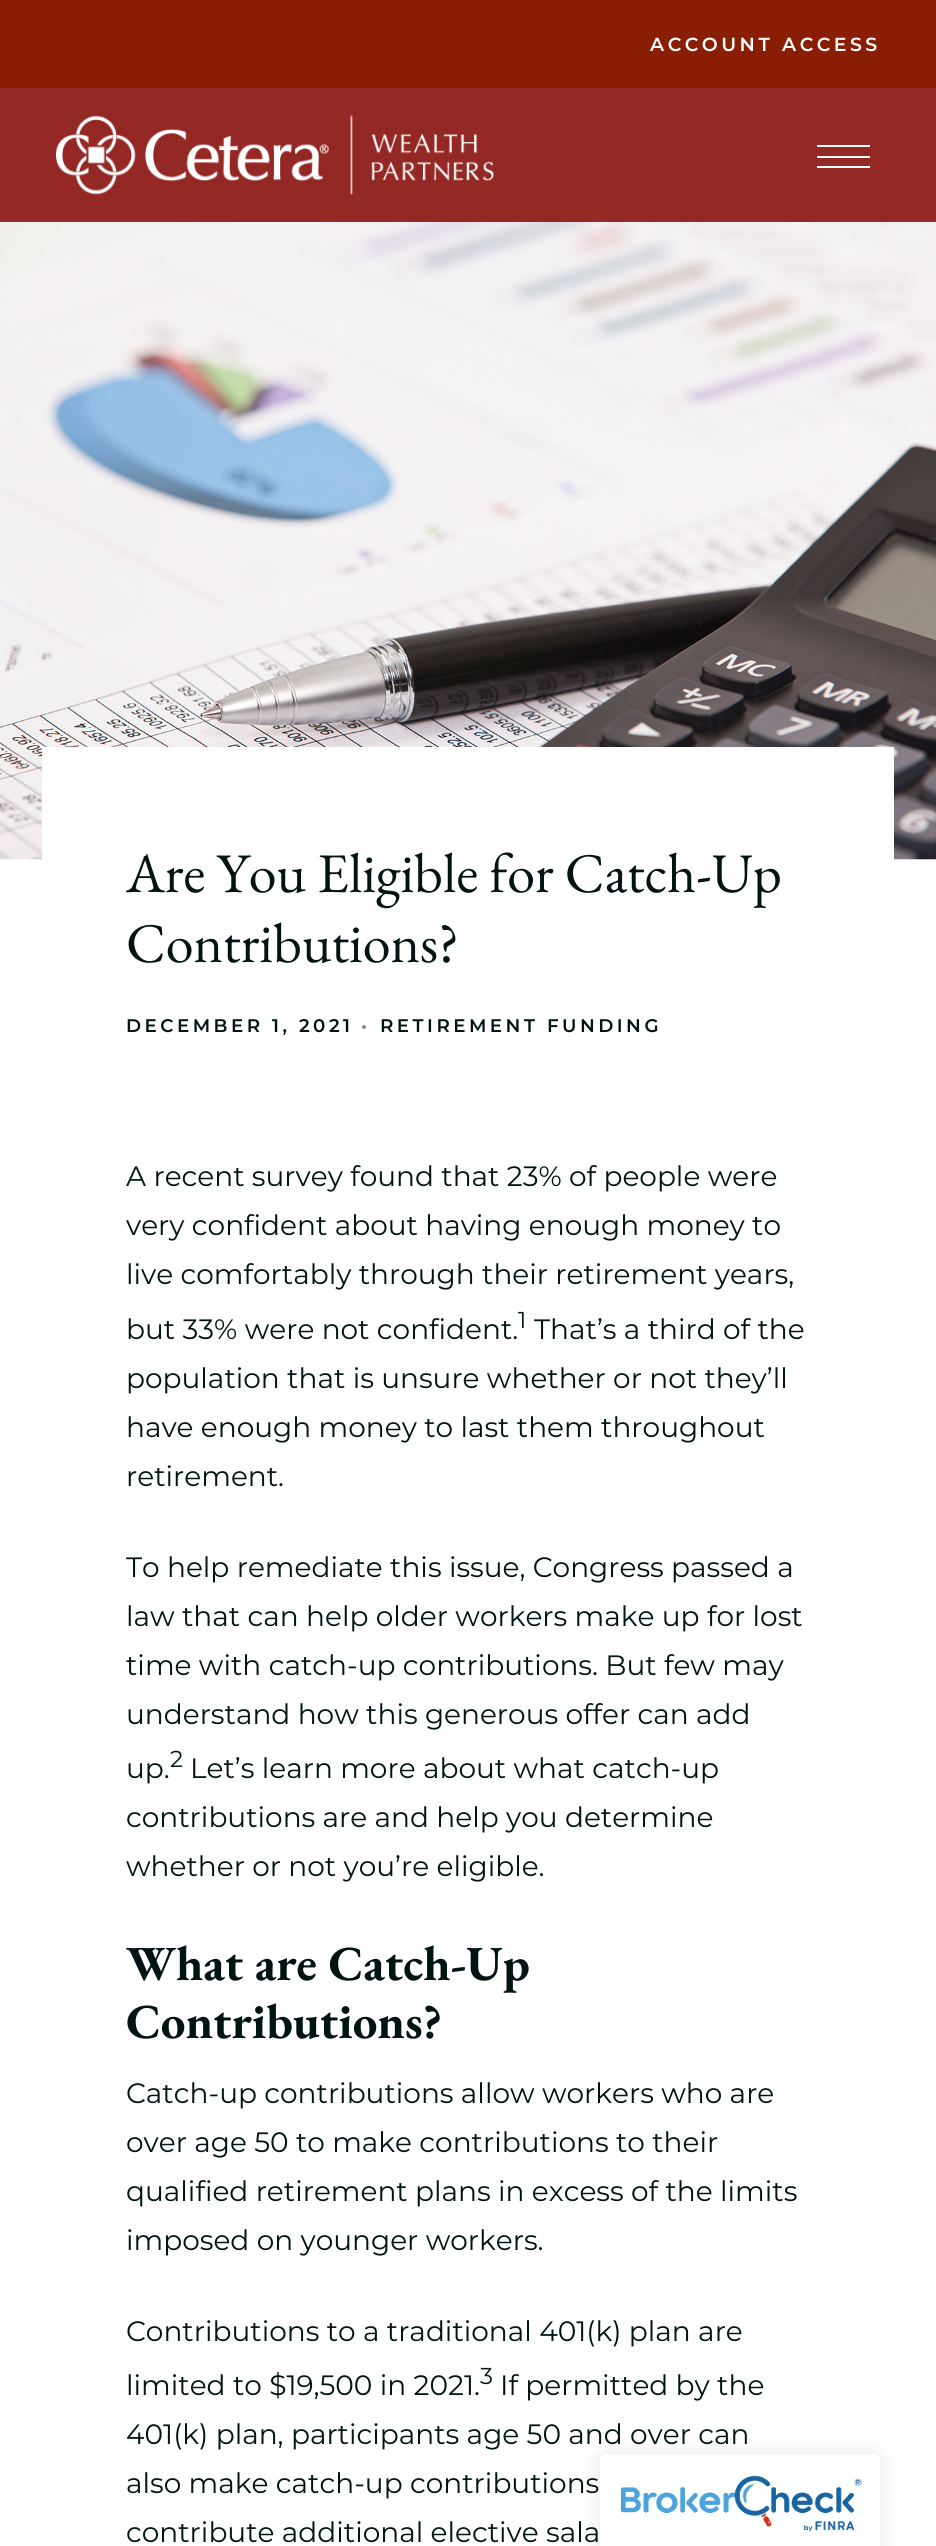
import math
import cairo

surface = cairo.ImageSurface(cairo.FORMAT_RGB24, 936, 2546)
ctx = cairo.Context(surface)
options = cairo.FontOptions()
options.set_hint_metrics(cairo.HINT_METRICS_OFF)
options.set_hint_style(cairo.HINT_STYLE_NONE)
ctx.set_font_options(options)
ctx.set_miter_limit(4)


def spaced_text(x, y, s, letter, word):
    ctx.move_to(x, y)
    for ch in s:
        ctx.show_text(ch)
        ctx.rel_move_to(letter + word * (ch == ' '), 0)


def round_rect(x, y, w, h, r):
    ctx.new_sub_path()
    for i, (u, v) in enumerate([(x + w - r, y + h - r), (x + r, y + h - r), (x + r, y + r), (x + w - r, y + r)]):
        ctx.arc(u, v, r, i * math.pi / 2, (i + 1) * math.pi / 2)
    ctx.close_path()


def shadow(x, y, w, h, r, blur, alpha):
    ctx.push_group_with_content(cairo.CONTENT_ALPHA)
    ctx.set_operator(cairo.OPERATOR_SOURCE)
    for i in range(15, -16, -2):
        e = blur * i / 6
        if min(w, h) + 2 * e > 0:
            ctx.set_source_rgba(0, 0, 0, alpha * math.erfc((i - 1) / 8.5) / 2)
            round_rect(x - e, y - e, w + 2 * e, h + 2 * e, max(0, min(r + e + blur * .6, min(w, h) / 2 + e)))
            ctx.fill()
    ctx.mask(ctx.pop_group())


def picture(path, x, y, w, h):
    ctx.save()
    ctx.set_source_surface(cairo.ImageSurface.create_from_png(path), x, y)
    ctx.rectangle(x, y, w, h)
    ctx.fill()
    ctx.restore()


ctx.set_source_rgb(1, 1, 1)
ctx.paint()
ctx.set_source_rgb(0.541, 0.118, 0.016)
ctx.rectangle(0, 0, 936, 88)
ctx.fill()
ctx.select_font_face("Montserrat SemiBold")
ctx.set_font_size(18.9)
ctx.set_source_rgb(1, 1, 1)
spaced_text(650, 51, "ACCOUNT ACCESS", 3.5, 0)
ctx.set_source_rgb(0.58, 0.157, 0.145)
ctx.rectangle(0, 88, 936, 134)
ctx.fill()
picture("img1.png", 56, 115, 438, 80)
ctx.set_source_rgb(1, 1, 1)
ctx.rectangle(817, 156, 53, 2)
ctx.fill()
ctx.rectangle(817, 145, 53, 2)
ctx.fill()
ctx.rectangle(817, 166, 53, 2)
ctx.fill()
picture("img2.png", 0, 222, 936, 638)
ctx.rectangle(42, 747, 852, 113)
ctx.fill()
ctx.select_font_face("EB Garamond")
ctx.set_font_size(56)
ctx.set_source_rgb(0, 0.082, 0.078)
ctx.move_to(126, 892)
ctx.show_text("Are You Eligible for Catch-Up")
ctx.move_to(126, 962)
ctx.show_text("Contributions?")
ctx.select_font_face("Montserrat SemiBold")
ctx.set_font_size(18.25)
spaced_text(126, 1032, "DECEMBER 1, 2021", 3.5, 0)
ctx.set_source_rgb(0.502, 0.541, 0.541)
spaced_text(361, 1032, "•", 3.5, 0)
ctx.set_source_rgb(0, 0.082, 0.078)
spaced_text(380, 1032, "RETIREMENT FUNDING", 3.5, 0)
ctx.select_font_face("Montserrat")
ctx.set_font_size(28)
ctx.move_to(126, 1186)
ctx.show_text("A recent survey found that 23% of people were")
ctx.move_to(126, 1235)
ctx.show_text("very confident about having enough money to")
ctx.move_to(126, 1284)
ctx.show_text("live comfortably through their retirement years,")
ctx.move_to(126, 1339)
ctx.show_text("but 33% were not confident.")
ctx.set_font_size(23)
ctx.move_to(518, 1328)
ctx.show_text("1")
ctx.set_font_size(28)
ctx.move_to(534, 1339)
ctx.show_text("That’s a third of the")
ctx.move_to(126, 1388)
ctx.show_text("population that is unsure whether or not they’ll")
ctx.move_to(126, 1437)
ctx.show_text("have enough money to last them throughout")
ctx.move_to(126, 1486)
ctx.show_text("retirement.")
ctx.move_to(126, 1577)
ctx.show_text("To help remediate this issue, Congress passed a")
ctx.move_to(126, 1626)
ctx.show_text("law that can help older workers make up for lost")
ctx.move_to(126, 1675)
ctx.show_text("time with catch-up contributions. But few may")
ctx.move_to(126, 1724)
ctx.show_text("understand how this generous offer can add")
ctx.move_to(126, 1778)
ctx.show_text("up.")
ctx.set_font_size(23)
ctx.move_to(170, 1767)
ctx.show_text("2")
ctx.set_font_size(28)
ctx.move_to(190, 1778)
ctx.show_text("Let’s learn more about what catch-up")
ctx.move_to(126, 1827)
ctx.show_text("contributions are and help you determine")
ctx.move_to(126, 1876)
ctx.show_text("whether or not you’re eligible.")
ctx.select_font_face("EB Garamond", cairo.FONT_SLANT_NORMAL, cairo.FONT_WEIGHT_BOLD)
ctx.set_font_size(49)
ctx.move_to(126, 1980)
ctx.show_text("What are Catch-Up")
ctx.move_to(126, 2038)
ctx.show_text("Contributions?")
ctx.select_font_face("Montserrat")
ctx.set_font_size(28)
ctx.move_to(126, 2103)
ctx.show_text("Catch-up contributions allow workers who are")
ctx.move_to(126, 2152)
ctx.show_text("over age 50 to make contributions to their")
ctx.move_to(126, 2201)
ctx.show_text("qualified retirement plans in excess of the limits")
ctx.move_to(126, 2250)
ctx.show_text("imposed on younger workers.")
ctx.move_to(126, 2341)
ctx.show_text("Contributions to a traditional 401(k) plan are")
ctx.move_to(126, 2395)
ctx.show_text("limited to $19,500 in 2021.")
ctx.set_font_size(23)
ctx.move_to(480, 2384)
ctx.show_text("3")
ctx.set_font_size(28)
ctx.move_to(500, 2395)
ctx.show_text("If permitted by the")
ctx.move_to(126, 2444)
ctx.show_text("401(k) plan, participants age 50 and over can")
ctx.move_to(126, 2493)
ctx.show_text("also make catch-up contributions")
ctx.move_to(126, 2542)
ctx.show_text("contribute additional elective sala")
ctx.set_source_rgb(0, 0, 0)
shadow(600, 2454, 280, 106, 7, 10.5, 0.1)
ctx.set_source_rgb(1, 1, 1)
ctx.new_path()
ctx.move_to(607, 2454)
ctx.line_to(873, 2454)
ctx.curve_to(877, 2454, 880, 2457, 880, 2461)
ctx.line_to(880, 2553)
ctx.line_to(600, 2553)
ctx.line_to(600, 2461)
ctx.curve_to(600, 2457, 603, 2454, 607, 2454)
ctx.close_path()
ctx.fill()
picture("img3.png", 620, 2475, 242, 57)
surface.write_to_png("page.png")
